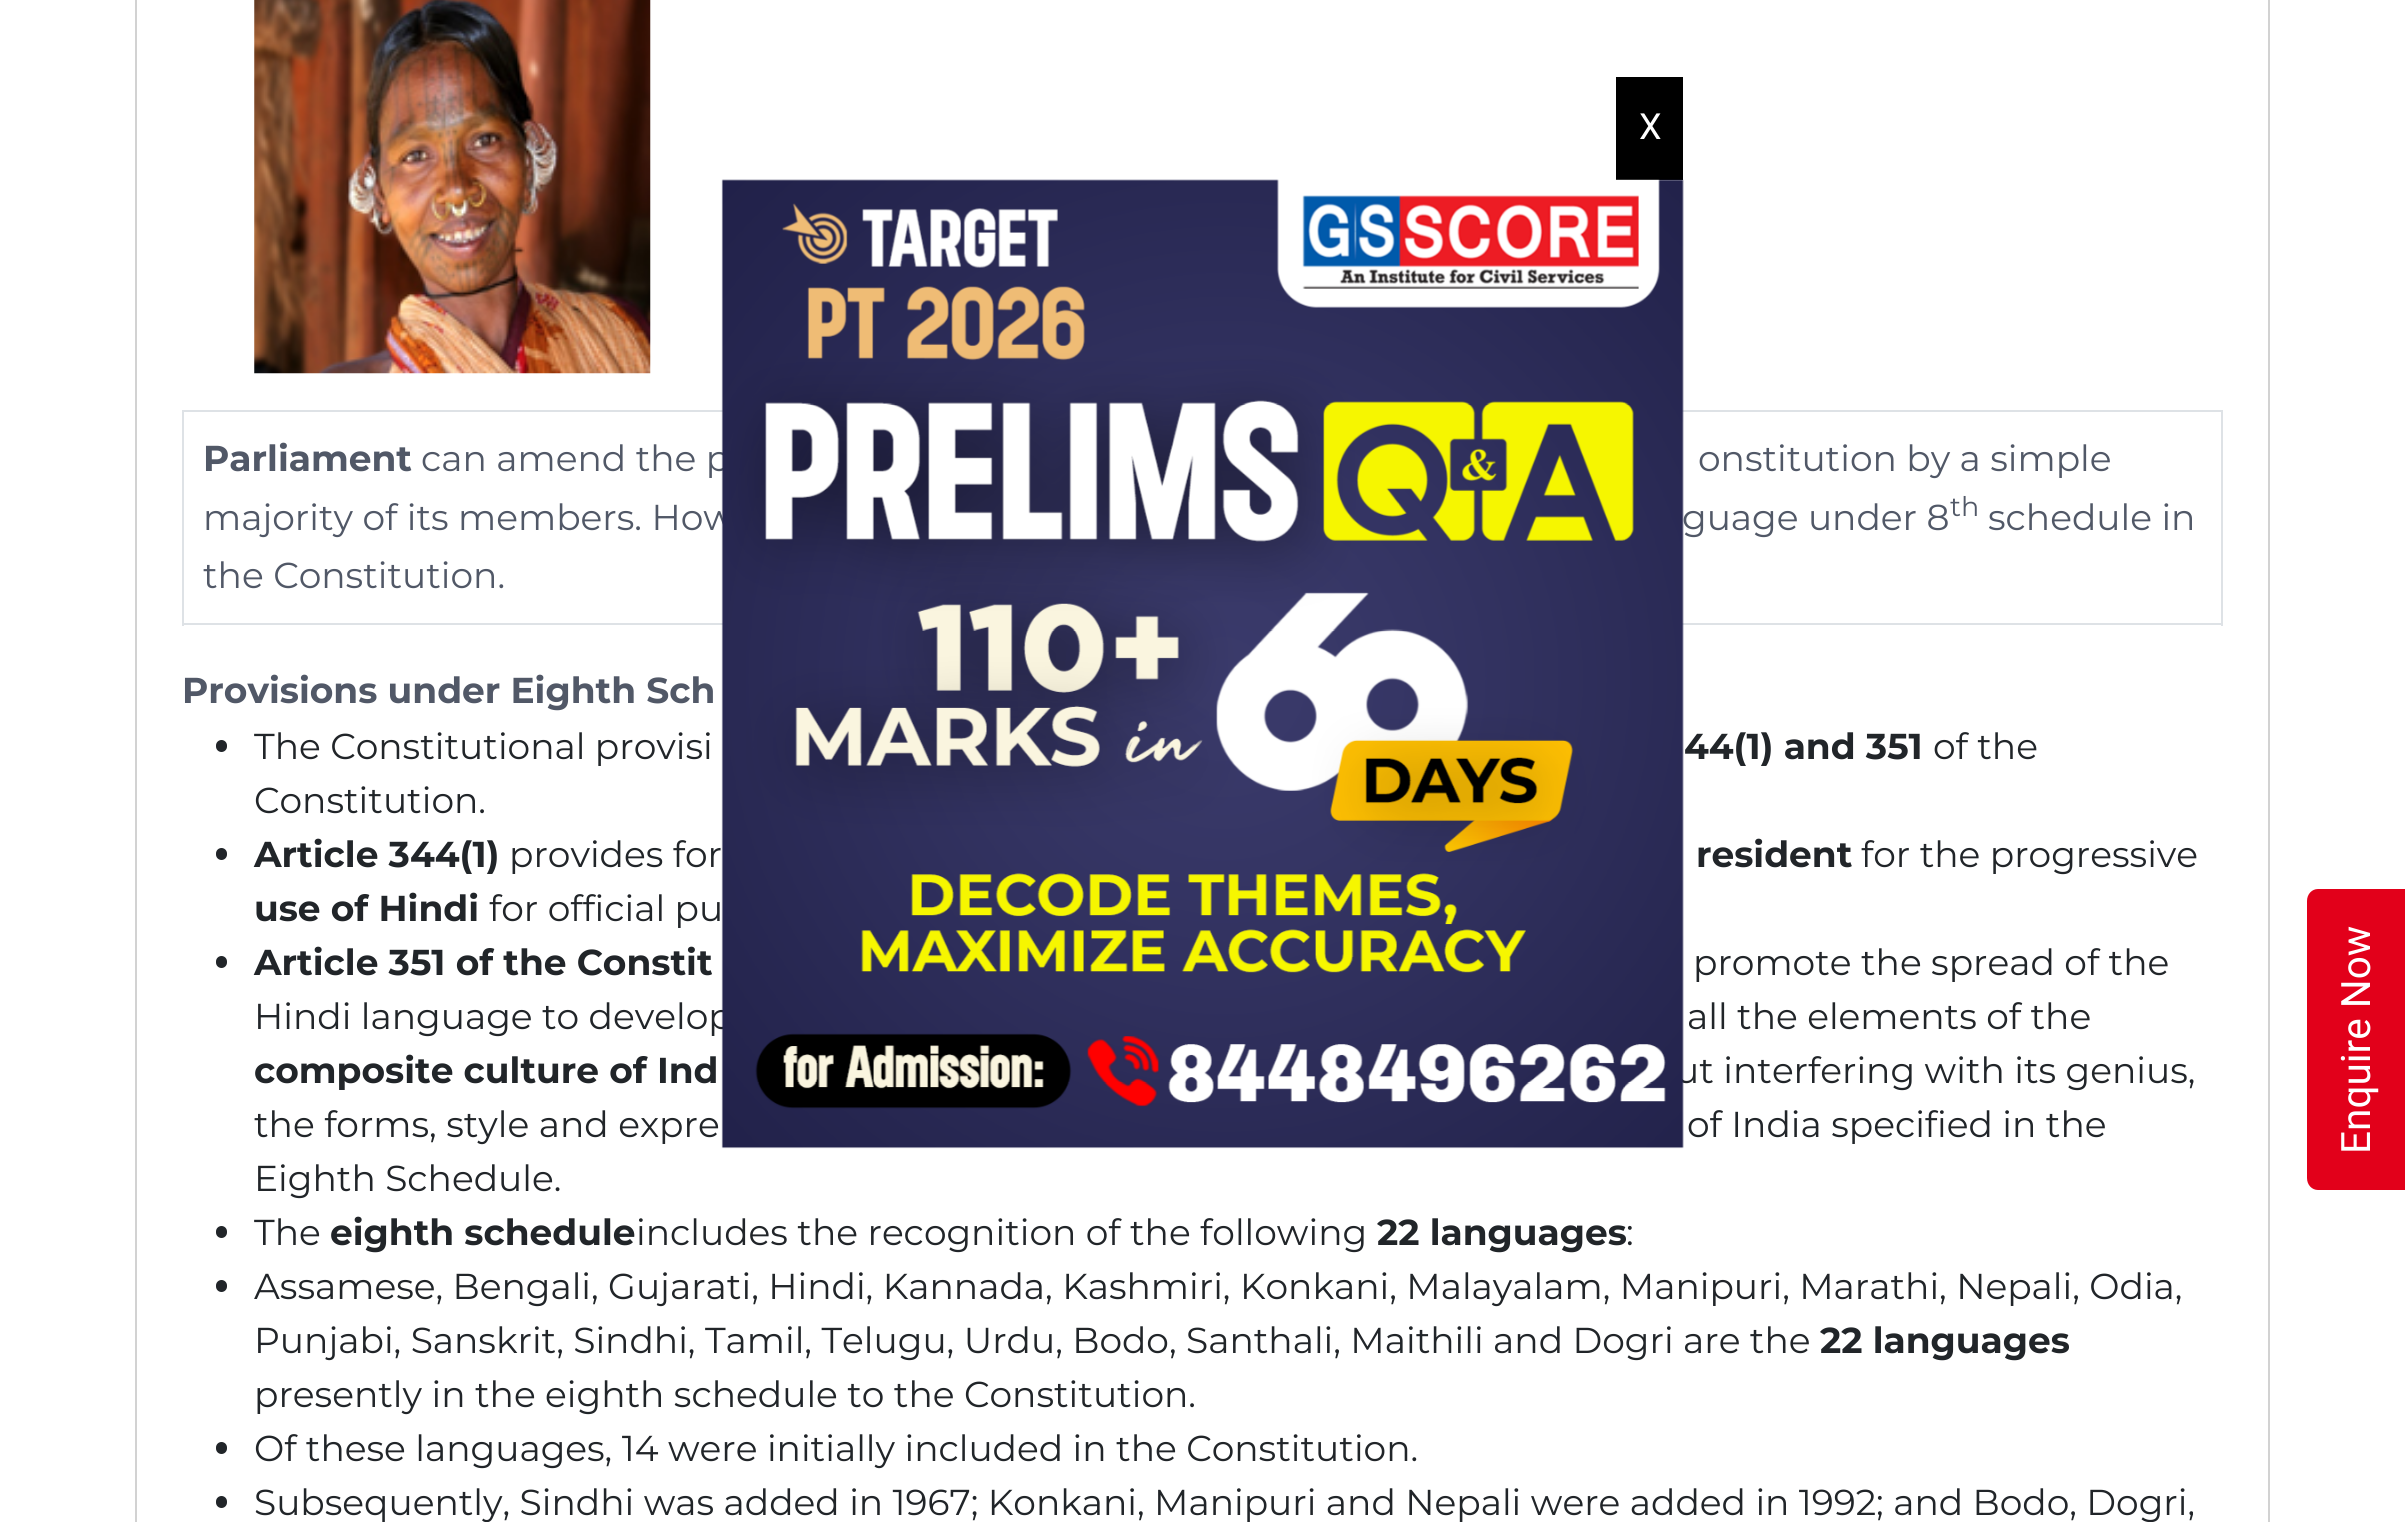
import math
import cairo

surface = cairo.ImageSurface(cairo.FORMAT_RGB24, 2405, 1522)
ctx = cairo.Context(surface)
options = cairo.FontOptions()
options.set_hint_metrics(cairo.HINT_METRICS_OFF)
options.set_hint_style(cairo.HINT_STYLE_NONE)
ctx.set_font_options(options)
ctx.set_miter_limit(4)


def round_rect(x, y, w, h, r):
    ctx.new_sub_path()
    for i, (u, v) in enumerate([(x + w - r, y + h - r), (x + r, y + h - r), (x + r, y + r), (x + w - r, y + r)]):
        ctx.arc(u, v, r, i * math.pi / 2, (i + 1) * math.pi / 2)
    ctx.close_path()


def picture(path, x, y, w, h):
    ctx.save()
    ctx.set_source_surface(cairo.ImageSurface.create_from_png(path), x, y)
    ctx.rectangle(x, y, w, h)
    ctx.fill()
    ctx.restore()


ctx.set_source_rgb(1, 1, 1)
ctx.paint()
ctx.rectangle(136, -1, 2133, 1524)
ctx.set_source_rgb(0.824, 0.824, 0.824)
ctx.stroke()
ctx.set_source_rgb(0, 0, 0)
ctx.rectangle(1616, 77, 67, 103)
ctx.fill()
ctx.select_font_face("Roboto")
ctx.set_font_size(36)
ctx.set_source_rgb(1, 1, 1)
ctx.move_to(1639, 139)
ctx.show_text("X")
ctx.set_source_rgb(0.871, 0.886, 0.902)
ctx.rectangle(182, 410, 2041, 2)
ctx.fill()
ctx.rectangle(182, 623, 2041, 2)
ctx.fill()
ctx.select_font_face("Montserrat")
ctx.set_source_rgb(0.318, 0.345, 0.404)
ctx.move_to(421, 471)
ctx.show_text("can amend the p")
ctx.move_to(203, 530)
ctx.show_text("majority of its members. How")
ctx.move_to(1682, 530)
ctx.show_text("guage under 8")
ctx.set_source_rgb(0.129, 0.145, 0.161)
ctx.move_to(254, 1029)
ctx.show_text("Hindi language to develop")
ctx.move_to(1675, 1083)
ctx.show_text("ut interfering with its genius,")
picture("img1.png", 721, 179, 963, 970)
picture("img2.png", 254, 0, 397, 374)
ctx.set_source_rgb(0.871, 0.886, 0.902)
ctx.rectangle(2221, 410, 2, 216)
ctx.fill()
ctx.rectangle(182, 410, 2, 216)
ctx.fill()
ctx.select_font_face("Montserrat", cairo.FONT_SLANT_NORMAL, cairo.FONT_WEIGHT_BOLD)
ctx.set_source_rgb(0.318, 0.345, 0.404)
ctx.move_to(203, 471)
ctx.show_text("Parliament")
ctx.select_font_face("Montserrat")
ctx.move_to(1698, 471)
ctx.show_text("onstitution by a simple")
ctx.set_font_size(27)
ctx.move_to(1950, 516)
ctx.show_text("th")
ctx.set_font_size(36)
ctx.move_to(1988, 530)
ctx.show_text("schedule in")
ctx.move_to(203, 588)
ctx.show_text("the Constitution.")
ctx.select_font_face("Montserrat", cairo.FONT_SLANT_NORMAL, cairo.FONT_WEIGHT_BOLD)
ctx.move_to(182, 703)
ctx.show_text("Provisions under Eighth Sch")
ctx.set_source_rgb(0.129, 0.145, 0.161)
round_rect(216, 740, 11, 12, 5.5)
ctx.fill()
ctx.select_font_face("Montserrat")
ctx.move_to(254, 759)
ctx.show_text("The Constitutional provisi")
ctx.select_font_face("Montserrat", cairo.FONT_SLANT_NORMAL, cairo.FONT_WEIGHT_BOLD)
ctx.move_to(1684, 759)
ctx.show_text("44(1) and 351")
ctx.select_font_face("Montserrat")
ctx.move_to(1933, 759)
ctx.show_text("of the")
ctx.move_to(254, 813)
ctx.show_text("Constitution.")
round_rect(216, 848, 11, 12, 5.5)
ctx.fill()
ctx.select_font_face("Montserrat", cairo.FONT_SLANT_NORMAL, cairo.FONT_WEIGHT_BOLD)
ctx.move_to(254, 867)
ctx.show_text("Article 344(1)")
ctx.select_font_face("Montserrat")
ctx.move_to(509, 867)
ctx.show_text("provides for")
ctx.select_font_face("Montserrat", cairo.FONT_SLANT_NORMAL, cairo.FONT_WEIGHT_BOLD)
ctx.move_to(1696, 867)
ctx.show_text("resident")
ctx.select_font_face("Montserrat")
ctx.move_to(1861, 867)
ctx.show_text("for the progressive")
ctx.select_font_face("Montserrat", cairo.FONT_SLANT_NORMAL, cairo.FONT_WEIGHT_BOLD)
ctx.move_to(254, 921)
ctx.show_text("use of Hindi")
ctx.select_font_face("Montserrat")
ctx.move_to(489, 921)
ctx.show_text("for official pu")
round_rect(216, 956, 11, 12, 5.5)
ctx.fill()
ctx.select_font_face("Montserrat", cairo.FONT_SLANT_NORMAL, cairo.FONT_WEIGHT_BOLD)
ctx.move_to(254, 975)
ctx.show_text("Article 351 of the Constit")
ctx.select_font_face("Montserrat")
ctx.move_to(1693, 975)
ctx.show_text("promote the spread of the")
ctx.move_to(1687, 1029)
ctx.show_text("all the elements of the")
ctx.select_font_face("Montserrat", cairo.FONT_SLANT_NORMAL, cairo.FONT_WEIGHT_BOLD)
ctx.move_to(254, 1083)
ctx.show_text("composite culture of Ind")
ctx.select_font_face("Montserrat")
ctx.move_to(254, 1137)
ctx.show_text("the forms, style and expre")
ctx.move_to(1687, 1137)
ctx.show_text("of India specified in the")
ctx.move_to(254, 1191)
ctx.show_text("Eighth Schedule.")
round_rect(216, 1226, 11, 12, 5.5)
ctx.fill()
ctx.move_to(254, 1245)
ctx.show_text("The")
ctx.select_font_face("Montserrat", cairo.FONT_SLANT_NORMAL, cairo.FONT_WEIGHT_BOLD)
ctx.move_to(330, 1245)
ctx.show_text("eighth schedule")
ctx.select_font_face("Montserrat")
ctx.move_to(636, 1245)
ctx.show_text("includes the recognition of the following")
ctx.select_font_face("Montserrat", cairo.FONT_SLANT_NORMAL, cairo.FONT_WEIGHT_BOLD)
ctx.move_to(1377, 1245)
ctx.show_text("22 languages")
ctx.select_font_face("Montserrat")
ctx.move_to(1626, 1245)
ctx.show_text(":")
round_rect(216, 1280, 11, 12, 5.5)
ctx.fill()
ctx.move_to(254, 1299)
ctx.show_text("Assamese, Bengali, Gujarati, Hindi, Kannada, Kashmiri, Konkani, Malayalam, Manipuri, Marathi, Nepali, Odia,")
ctx.move_to(254, 1353)
ctx.show_text("Punjabi, Sanskrit, Sindhi, Tamil, Telugu, Urdu, Bodo, Santhali, Maithili and Dogri are the")
ctx.select_font_face("Montserrat", cairo.FONT_SLANT_NORMAL, cairo.FONT_WEIGHT_BOLD)
ctx.move_to(1820, 1353)
ctx.show_text("22 languages")
ctx.select_font_face("Montserrat")
ctx.move_to(254, 1407)
ctx.show_text("presently in the eighth schedule to the Constitution.")
round_rect(216, 1442, 11, 12, 5.5)
ctx.fill()
ctx.move_to(254, 1461)
ctx.show_text("Of these languages, 14 were initially included in the Constitution.")
round_rect(216, 1496, 11, 12, 5.5)
ctx.fill()
ctx.move_to(254, 1515)
ctx.show_text("Subsequently, Sindhi was added in 1967; Konkani, Manipuri and Nepali were added in 1992; and Bodo, Dogri,")
ctx.set_source_rgb(0.886, 0, 0.102)
ctx.new_path()
ctx.move_to(2307, 1178)
ctx.line_to(2307, 901)
ctx.curve_to(2307, 894, 2312, 889, 2318, 889)
ctx.line_to(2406, 889)
ctx.line_to(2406, 1190)
ctx.line_to(2318, 1190)
ctx.curve_to(2312, 1190, 2307, 1185, 2307, 1178)
ctx.close_path()
ctx.fill()
ctx.select_font_face("Roboto")
ctx.set_font_size(40.5)
ctx.set_source_rgb(1, 1, 1)
ctx.save()
ctx.translate(2370, 1154)
ctx.rotate(-90 * math.pi / 180)
ctx.move_to(0, 0)
ctx.show_text("Enquire Now")
ctx.restore()
surface.write_to_png("page.png")
